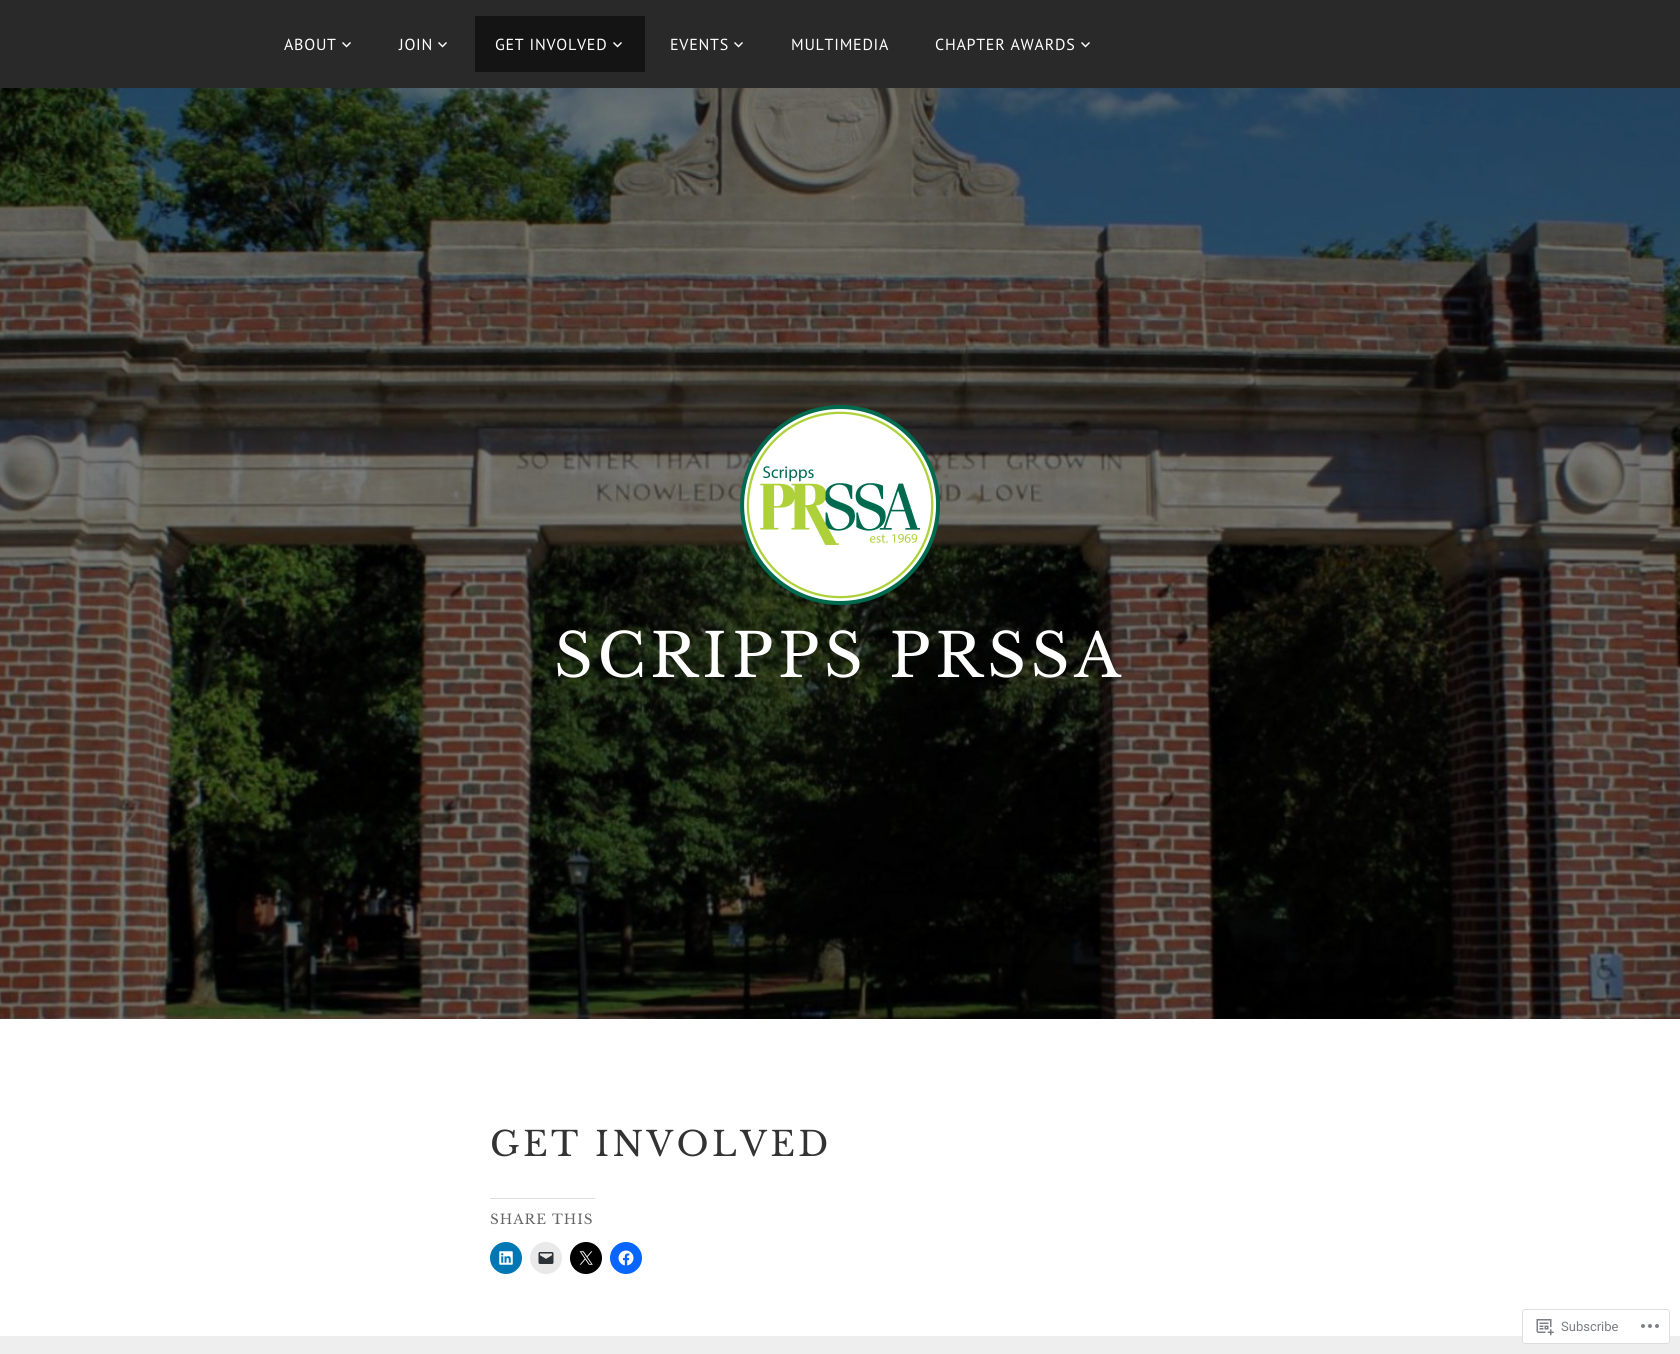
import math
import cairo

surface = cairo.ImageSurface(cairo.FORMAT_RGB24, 1680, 1354)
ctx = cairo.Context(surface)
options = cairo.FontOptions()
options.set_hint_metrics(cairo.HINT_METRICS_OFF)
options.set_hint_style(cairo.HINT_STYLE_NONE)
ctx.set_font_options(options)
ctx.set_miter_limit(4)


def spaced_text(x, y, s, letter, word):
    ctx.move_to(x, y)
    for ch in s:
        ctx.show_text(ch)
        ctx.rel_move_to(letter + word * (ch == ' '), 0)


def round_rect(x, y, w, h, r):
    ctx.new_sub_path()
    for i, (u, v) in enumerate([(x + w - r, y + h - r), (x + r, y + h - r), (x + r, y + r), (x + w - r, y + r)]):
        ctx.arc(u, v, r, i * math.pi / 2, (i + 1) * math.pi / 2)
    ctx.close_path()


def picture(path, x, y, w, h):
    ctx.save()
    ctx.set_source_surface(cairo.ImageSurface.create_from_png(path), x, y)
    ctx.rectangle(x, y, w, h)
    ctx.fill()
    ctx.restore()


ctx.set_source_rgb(1, 1, 1)
ctx.paint()
ctx.set_source_rgb(0.161, 0.161, 0.165)
ctx.rectangle(0, 0, 1680, 88)
ctx.fill()
ctx.select_font_face("PT Sans")
ctx.set_font_size(16)
ctx.set_source_rgb(1, 1, 1)
spaced_text(284, 50, "ABOUT", 0.75, 0)
picture("img1.png", 342, 42, 9, 6)
spaced_text(399, 50, "JOIN", 0.75, 0)
picture("img1.png", 438, 42, 9, 6)
ctx.set_source_rgb(0.082, 0.082, 0.082)
ctx.rectangle(475, 16, 170, 56)
ctx.fill()
ctx.set_source_rgb(1, 1, 1)
spaced_text(495, 50, "GET INVOLVED", 0.75, 0)
picture("img2.png", 613, 42, 9, 6)
spaced_text(670, 50, "EVENTS", 0.75, 0)
picture("img1.png", 734, 42, 9, 6)
spaced_text(791, 50, "MULTIMEDIA", 0.75, 0)
spaced_text(935, 50, "CHAPTER AWARDS", 0.75, 0)
picture("img1.png", 1081, 42, 9, 6)
picture("img3.png", 0, 88, 1680, 931)
picture("img4.png", 740, 405, 200, 200)
ctx.select_font_face("Libre Baskerville")
ctx.set_font_size(60)
spaced_text(554, 677, "SCRIPPS PRSSA", 4.75, 0)
ctx.set_font_size(34)
ctx.set_source_rgb(0.2, 0.2, 0.2)
spaced_text(490, 1156, "GET INVOLVED", 3.4, 0)
ctx.set_source_rgb(0.863, 0.863, 0.871)
ctx.rectangle(490, 1198, 105, 1)
ctx.fill()
ctx.set_font_size(13.5)
ctx.set_source_rgb(0.4, 0.4, 0.4)
spaced_text(490, 1224, "SHARE THIS", 1, 0)
ctx.set_source_rgb(0, 0.467, 0.71)
ctx.new_path()
ctx.arc(506, 1258, 16, 0, 2 * math.pi)
ctx.fill()
picture("img5.png", 499, 1251, 14, 14)
ctx.set_source_rgb(0.914, 0.914, 0.914)
ctx.arc(546, 1258, 16, 0, 2 * math.pi)
ctx.fill()
picture("img6.png", 538, 1252, 16, 12)
ctx.set_source_rgb(0, 0, 0)
ctx.arc(586, 1258, 16, 0, 2 * math.pi)
ctx.fill()
picture("img7.png", 579, 1251, 14, 14)
ctx.set_source_rgb(0.031, 0.4, 1)
ctx.arc(626, 1258, 16, 0, 2 * math.pi)
ctx.fill()
picture("img8.png", 618, 1250, 16, 16)
ctx.set_source_rgb(0.933, 0.933, 0.933)
ctx.rectangle(0, 1336, 1680, 18)
ctx.fill()
ctx.set_source_rgba(1, 1, 1, 0.98)
round_rect(1522, 1309, 148, 35, 3)
ctx.fill()
round_rect(1522.5, 1309.5, 147, 34, 2.5)
ctx.set_source_rgba(0.863, 0.863, 0.871, 0.98)
ctx.set_line_width(1)
ctx.stroke()
picture("img9.png", 1536, 1319, 18, 17)
ctx.select_font_face("Roboto")
ctx.set_font_size(13)
ctx.set_source_rgb(0.482, 0.498, 0.522)
ctx.move_to(1561, 1331)
ctx.show_text("Subscribe")
picture("img10.png", 1641, 1324, 18, 4)
surface.write_to_png("page.png")
